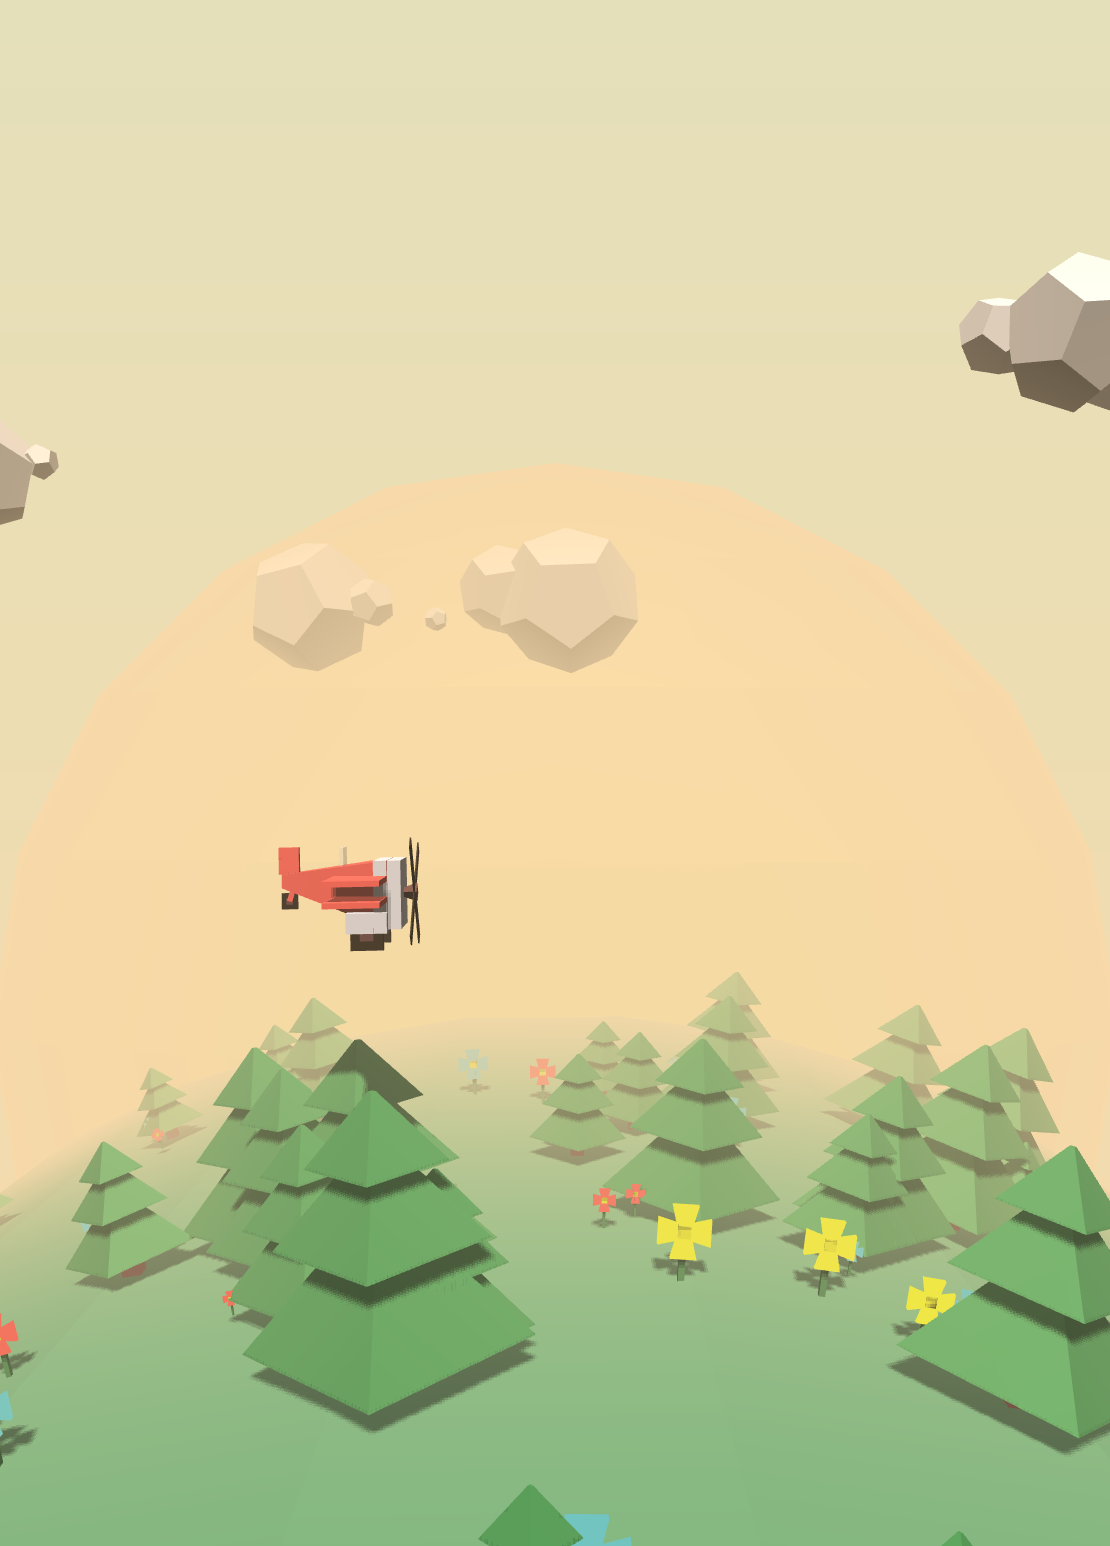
import math
import cairo

surface = cairo.ImageSurface(cairo.FORMAT_RGB24, 1110, 1546)
ctx = cairo.Context(surface)
options = cairo.FontOptions()
options.set_hint_metrics(cairo.HINT_METRICS_OFF)
options.set_hint_style(cairo.HINT_STYLE_NONE)
ctx.set_font_options(options)
ctx.set_miter_limit(4)


def picture(path, x, y, w, h):
    ctx.save()
    ctx.set_source_surface(cairo.ImageSurface.create_from_png(path), x, y)
    ctx.rectangle(x, y, w, h)
    ctx.fill()
    ctx.restore()


ctx.set_source_rgb(1, 1, 1)
ctx.paint()
gradient = cairo.LinearGradient(555, 0, 555, 1546)
gradient.add_color_stop_rgba(0, 0.894, 0.878, 0.729, 1)
gradient.add_color_stop_rgba(1, 0.969, 0.851, 0.667, 1)
ctx.set_source(gradient)
ctx.rectangle(0, 0, 1110, 1192)
ctx.fill()
picture("img1.png", 0, 252, 1110, 1294)
surface.write_to_png("page.png")
